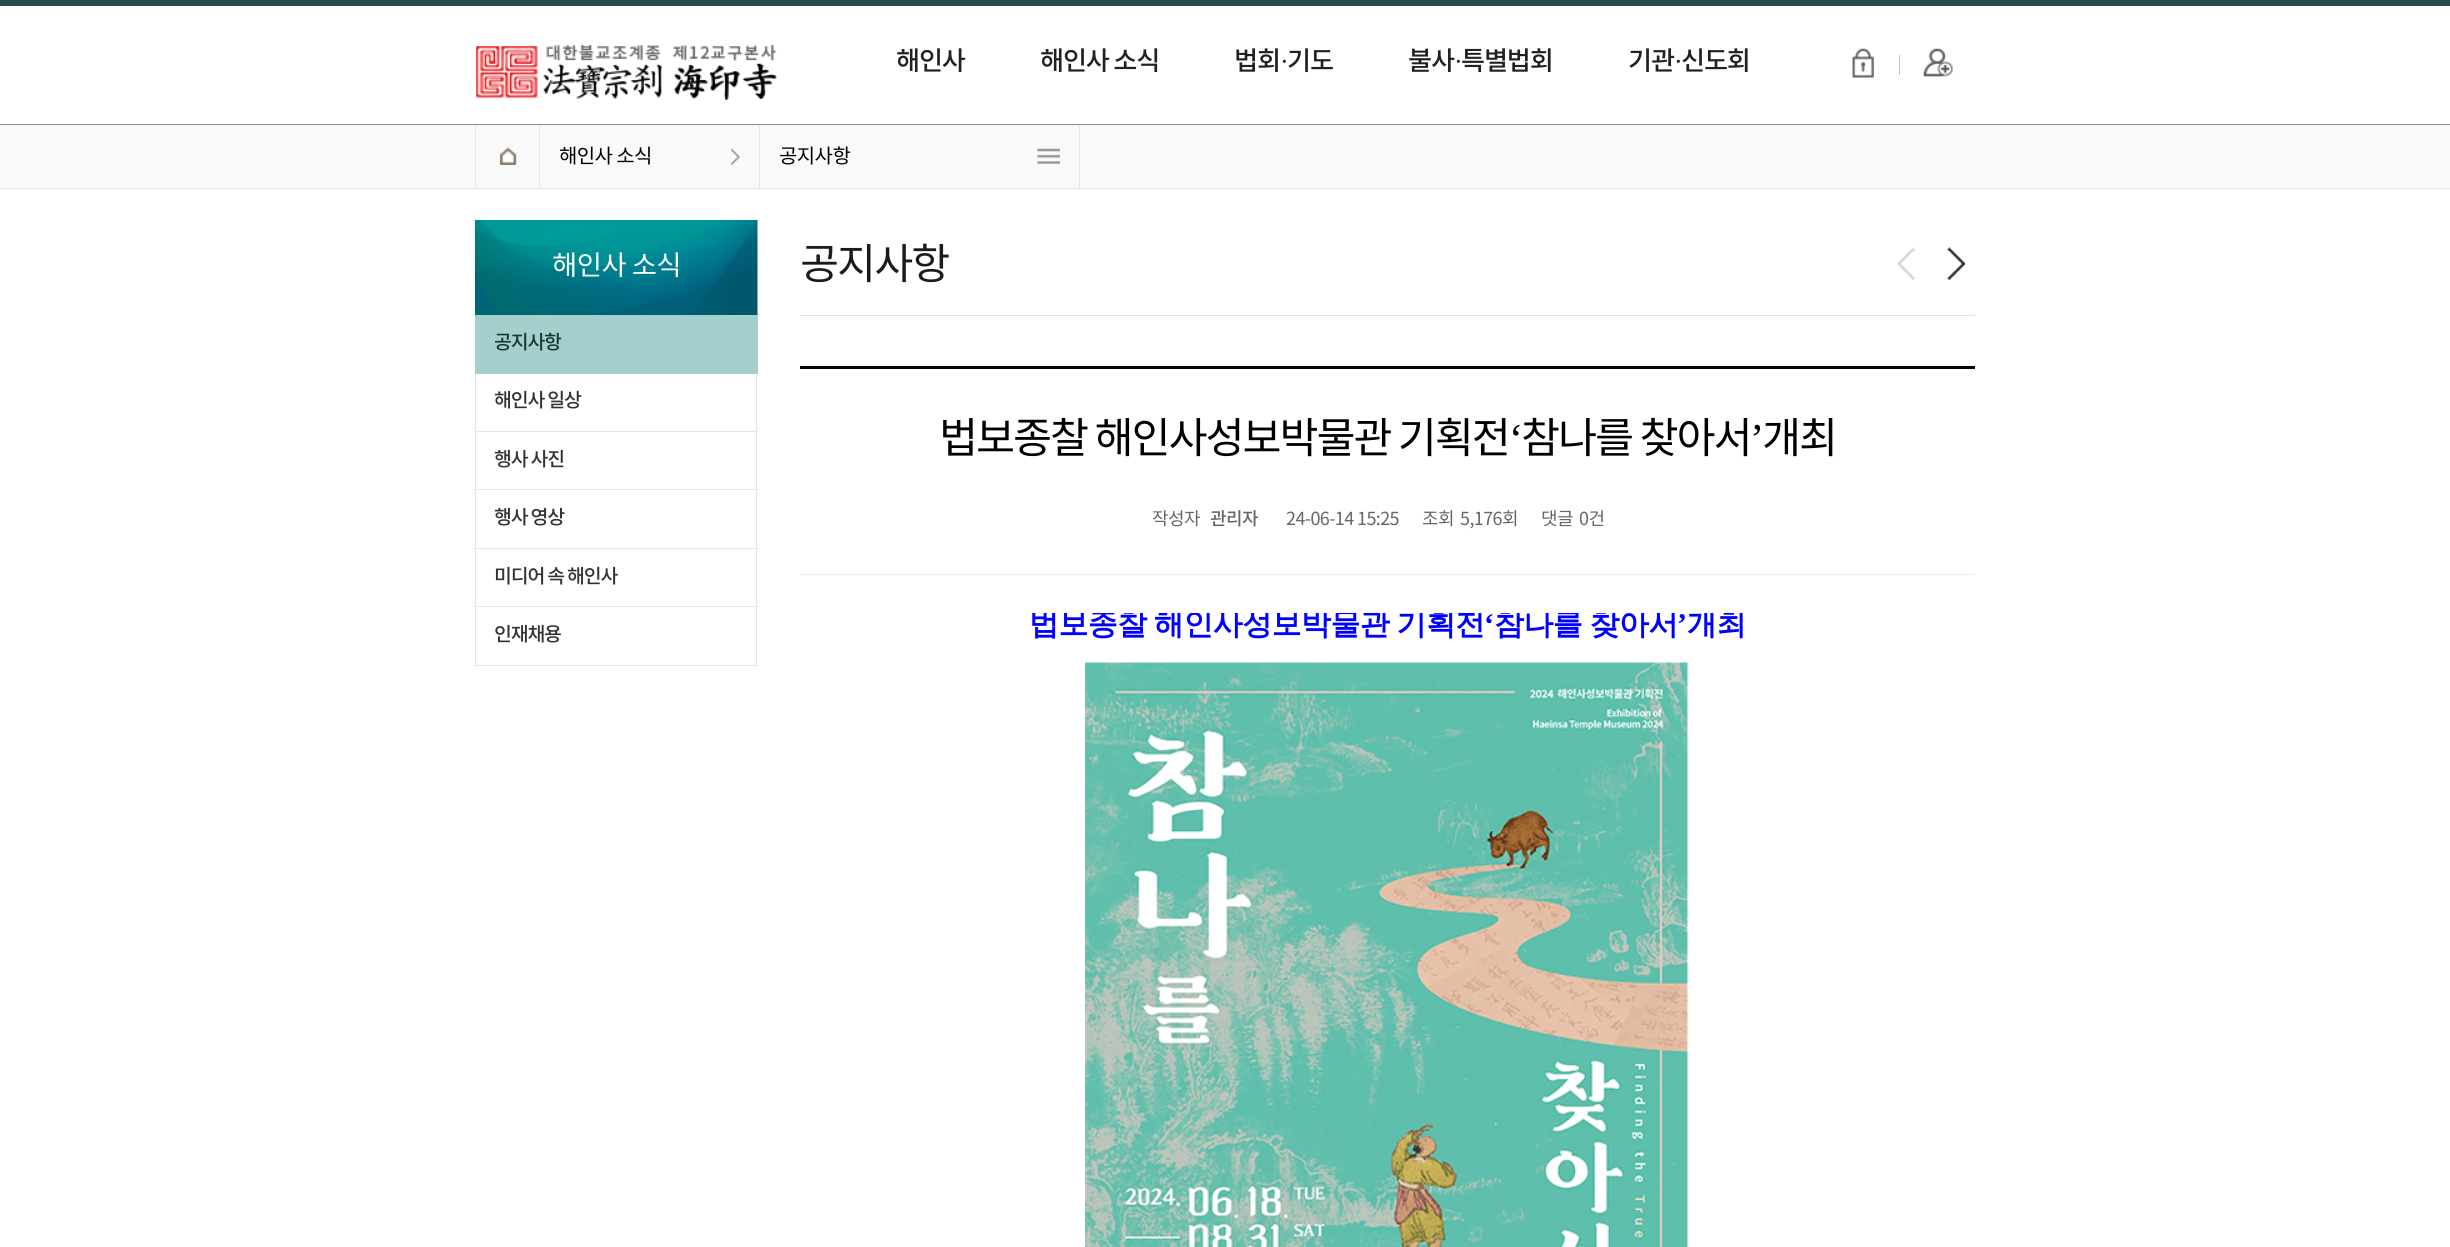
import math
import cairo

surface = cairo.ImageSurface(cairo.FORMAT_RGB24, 2450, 1247)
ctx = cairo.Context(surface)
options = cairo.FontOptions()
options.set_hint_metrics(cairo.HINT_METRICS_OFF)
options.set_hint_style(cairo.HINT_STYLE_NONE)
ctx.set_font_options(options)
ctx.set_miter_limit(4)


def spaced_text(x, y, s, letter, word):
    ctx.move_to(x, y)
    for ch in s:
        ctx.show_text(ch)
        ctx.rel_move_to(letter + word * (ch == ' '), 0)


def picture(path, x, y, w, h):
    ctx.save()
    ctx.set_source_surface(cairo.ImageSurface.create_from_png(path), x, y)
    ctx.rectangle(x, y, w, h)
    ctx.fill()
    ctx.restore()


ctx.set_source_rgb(1, 1, 1)
ctx.paint()
ctx.set_source_rgb(0.145, 0.298, 0.286)
ctx.rectangle(0, 0, 2450, 6)
ctx.fill()
ctx.set_source_rgb(0.576, 0.549, 0.518)
ctx.rectangle(0, 124, 2450, 1)
ctx.fill()
picture("img1.png", 476, 44, 301, 57)
ctx.select_font_face("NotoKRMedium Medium")
ctx.set_font_size(26.25)
ctx.set_source_rgb(0.129, 0.129, 0.129)
spaced_text(896, 70, "해인사", -1.25, 0)
spaced_text(1040, 70, "해인사 소식", -1.25, 0)
spaced_text(1234, 70, "법회", -1.25, 0)
ctx.select_font_face("Liberation Serif")
spaced_text(1280, 70, "·", -1.25, 0)
ctx.select_font_face("NotoKRMedium Medium")
spaced_text(1287, 70, "기도", -1.25, 0)
spaced_text(1408, 70, "불사", -1.25, 0)
ctx.select_font_face("Liberation Serif")
spaced_text(1454, 70, "·", -1.25, 0)
ctx.select_font_face("NotoKRMedium Medium")
spaced_text(1461, 70, "특별법회", -1.25, 0)
spaced_text(1628, 70, "기관", -1.25, 0)
ctx.select_font_face("Liberation Serif")
spaced_text(1674, 70, "·", -1.25, 0)
ctx.select_font_face("NotoKRMedium Medium")
spaced_text(1681, 70, "신도회", -1.25, 0)
picture("img2.png", 1852, 48, 22, 30)
ctx.set_source_rgb(0.757, 0.757, 0.757)
ctx.rectangle(1899, 55, 1, 20)
ctx.fill()
picture("img3.png", 1923, 48, 30, 29)
ctx.set_source_rgb(0.976, 0.973, 0.973)
ctx.rectangle(0, 125, 2450, 63)
ctx.fill()
ctx.set_source_rgb(0.898, 0.898, 0.898)
ctx.rectangle(0, 188, 2450, 1)
ctx.fill()
picture("img4.png", 500, 147, 17, 18)
ctx.rectangle(475, 125, 1, 63)
ctx.fill()
ctx.rectangle(539, 125, 1, 63)
ctx.fill()
picture("img5.png", 731, 148, 9, 17)
ctx.select_font_face("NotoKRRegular")
ctx.set_font_size(20)
ctx.set_source_rgb(0, 0, 0)
spaced_text(559, 163, "해인사 소식", -0.6, 0)
ctx.set_source_rgb(0.898, 0.898, 0.898)
ctx.rectangle(1079, 125, 1, 63)
ctx.fill()
ctx.rectangle(759, 125, 1, 63)
ctx.fill()
picture("img6.png", 1037, 148, 23, 16)
ctx.set_source_rgb(0, 0, 0)
spaced_text(779, 163, "공지사항", -0.6, 0)
picture("img7.png", 475, 220, 283, 95)
ctx.set_font_size(27.5)
ctx.set_source_rgb(1, 1, 1)
spaced_text(552, 275, "해인사 소식", -0.6, 0)
ctx.set_source_rgb(0.639, 0.812, 0.804)
ctx.rectangle(475, 315, 283, 59)
ctx.fill()
ctx.select_font_face("NotoKRMedium Medium")
ctx.set_font_size(19.5)
ctx.set_source_rgb(0.102, 0.212, 0.208)
spaced_text(494, 349, "공지사항", -1.25, 0)
ctx.set_source_rgb(0.898, 0.898, 0.898)
ctx.rectangle(756, 374, 1, 292)
ctx.fill()
ctx.rectangle(475, 431, 283, 1)
ctx.fill()
ctx.rectangle(475, 374, 1, 59)
ctx.fill()
ctx.set_source_rgb(0.2, 0.2, 0.2)
spaced_text(494, 407, "해인사 일상", -1.25, 0)
ctx.set_source_rgb(0.898, 0.898, 0.898)
ctx.rectangle(475, 489, 283, 1)
ctx.fill()
ctx.rectangle(475, 433, 1, 57)
ctx.fill()
ctx.set_source_rgb(0.2, 0.2, 0.2)
spaced_text(494, 466, "행사 사진", -1.25, 0)
ctx.set_source_rgb(0.898, 0.898, 0.898)
ctx.rectangle(475, 548, 283, 1)
ctx.fill()
ctx.rectangle(475, 490, 1, 59)
ctx.fill()
ctx.set_source_rgb(0.2, 0.2, 0.2)
spaced_text(494, 524, "행사 영상", -1.25, 0)
ctx.set_source_rgb(0.898, 0.898, 0.898)
ctx.rectangle(475, 606, 283, 1)
ctx.fill()
ctx.rectangle(475, 549, 1, 59)
ctx.fill()
ctx.set_source_rgb(0.2, 0.2, 0.2)
spaced_text(494, 583, "미디어 속 해인사", -1.25, 0)
ctx.set_source_rgb(0.898, 0.898, 0.898)
ctx.rectangle(475, 665, 283, 1)
ctx.fill()
ctx.rectangle(475, 608, 1, 58)
ctx.fill()
ctx.set_source_rgb(0.2, 0.2, 0.2)
spaced_text(494, 641, "인재채용", -1.25, 0)
ctx.set_source_rgb(0.882, 0.882, 0.882)
ctx.rectangle(800, 315, 1175, 1)
ctx.fill()
ctx.select_font_face("NotoKRRegular")
ctx.set_font_size(42.5)
ctx.set_source_rgb(0.106, 0.106, 0.106)
spaced_text(800, 279, "공지사항", -2, 0)
picture("img8.png", 1897, 247, 18, 33)
picture("img9.png", 1947, 247, 18, 33)
ctx.set_source_rgb(0, 0, 0)
ctx.rectangle(800, 366, 1175, 3)
ctx.fill()
spaced_text(939, 453, "법보종찰 해인사성보박물관 기획전", -2.1, 0)
ctx.select_font_face("Liberation Serif")
spaced_text(1509, 453, "‘", -2.1, 0)
ctx.select_font_face("NotoKRRegular")
spaced_text(1521, 453, "참나를 찾아서", -2.1, 0)
ctx.select_font_face("Liberation Serif")
spaced_text(1750, 453, "’", -2.1, 0)
ctx.select_font_face("NotoKRRegular")
spaced_text(1762, 453, "개최", -2.1, 0)
ctx.set_font_size(18)
ctx.set_source_rgb(0.4, 0.4, 0.4)
spaced_text(1152, 525, "작성자", -0.6, 0)
ctx.select_font_face("NotoKRMedium Medium")
spaced_text(1210, 525, "관리자", -0.6, 0)
ctx.select_font_face("NotoKRRegular")
spaced_text(1286, 525, "24-06-14 15:25", -0.6, 0)
spaced_text(1422, 525, "조회", -0.6, 0)
spaced_text(1460, 525, "5,176회", -0.6, 0)
spaced_text(1541, 525, "댓글", -0.6, 0)
spaced_text(1579, 525, "0건", -0.6, 0)
ctx.set_source_rgb(0.922, 0.922, 0.922)
ctx.rectangle(800, 574, 1175, 1)
ctx.fill()
ctx.save()
ctx.rectangle(800, 613, 1175, 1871)
ctx.clip()
ctx.select_font_face("WenQuanYi Zen Hei", cairo.FONT_SLANT_NORMAL, cairo.FONT_WEIGHT_BOLD)
ctx.set_font_size(30)
ctx.set_source_rgb(0, 0, 1)
spaced_text(1029, 634, "법보종찰 해인사성보박물관 기획전", -0.6, -1)
ctx.restore()
ctx.select_font_face("Liberation Serif", cairo.FONT_SLANT_NORMAL, cairo.FONT_WEIGHT_BOLD)
ctx.set_font_size(30)
ctx.set_source_rgb(0, 0, 1)
ctx.move_to(1484, 634)
ctx.show_text("‘")
ctx.save()
ctx.rectangle(800, 613, 1175, 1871)
ctx.clip()
ctx.select_font_face("WenQuanYi Zen Hei", cairo.FONT_SLANT_NORMAL, cairo.FONT_WEIGHT_BOLD)
spaced_text(1494, 634, "참나를 찾아서", -0.6, -1)
ctx.restore()
ctx.move_to(1677, 634)
ctx.show_text("’")
ctx.save()
ctx.rectangle(800, 613, 1175, 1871)
ctx.clip()
ctx.select_font_face("WenQuanYi Zen Hei", cairo.FONT_SLANT_NORMAL, cairo.FONT_WEIGHT_BOLD)
spaced_text(1687, 634, "개최", -0.6, 0)
ctx.restore()
picture("img10.png", 1085, 662, 603, 585)
surface.write_to_png("page.png")
